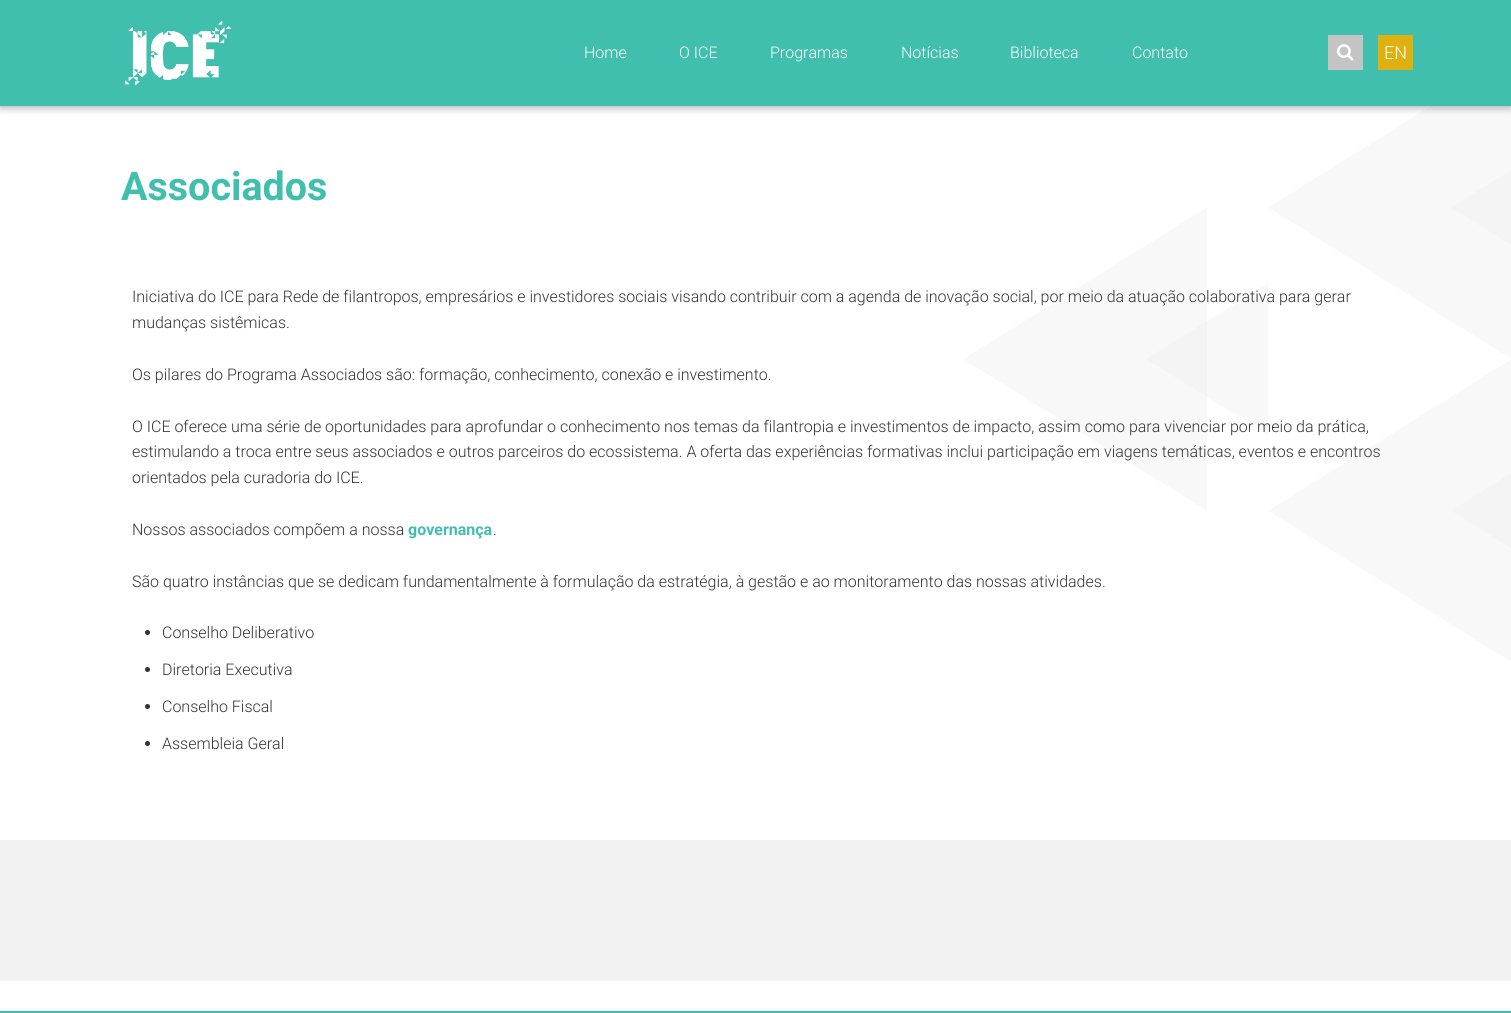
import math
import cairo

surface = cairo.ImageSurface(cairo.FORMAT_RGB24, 1511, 1013)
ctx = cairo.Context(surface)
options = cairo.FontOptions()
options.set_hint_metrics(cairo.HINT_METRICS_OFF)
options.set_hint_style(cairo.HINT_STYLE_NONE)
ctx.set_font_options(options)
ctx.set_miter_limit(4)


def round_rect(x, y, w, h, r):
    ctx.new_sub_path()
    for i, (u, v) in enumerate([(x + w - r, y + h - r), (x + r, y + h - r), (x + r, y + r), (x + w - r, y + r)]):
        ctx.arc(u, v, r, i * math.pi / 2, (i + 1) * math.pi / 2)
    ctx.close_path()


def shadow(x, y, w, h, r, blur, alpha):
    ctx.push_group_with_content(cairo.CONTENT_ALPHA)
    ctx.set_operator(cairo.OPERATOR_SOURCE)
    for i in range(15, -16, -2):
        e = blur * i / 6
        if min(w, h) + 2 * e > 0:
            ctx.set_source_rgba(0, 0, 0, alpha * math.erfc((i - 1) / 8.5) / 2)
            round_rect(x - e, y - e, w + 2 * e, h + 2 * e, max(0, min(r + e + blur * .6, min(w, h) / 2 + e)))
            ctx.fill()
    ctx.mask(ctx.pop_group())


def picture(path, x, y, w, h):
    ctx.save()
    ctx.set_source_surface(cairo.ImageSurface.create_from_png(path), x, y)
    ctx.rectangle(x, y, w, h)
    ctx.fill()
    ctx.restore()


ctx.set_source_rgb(1, 1, 1)
ctx.paint()
picture("img3.png", 964, 106, 547, 555)
ctx.set_source_rgb(0, 0, 0)
shadow(0, 2, 1511, 106, 0, 4, 0.3)
ctx.set_source_rgb(0.251, 0.749, 0.682)
ctx.rectangle(0, 0, 1511, 106)
ctx.fill()
picture("img1.png", 125, 21, 107, 65)
ctx.select_font_face("Roboto Light")
ctx.set_font_size(16)
ctx.set_source_rgb(1, 1, 1)
ctx.move_to(584, 58)
ctx.show_text("Home")
ctx.move_to(679, 58)
ctx.show_text("O ICE")
ctx.move_to(770, 58)
ctx.show_text("Programas")
ctx.move_to(901, 58)
ctx.show_text("Notícias")
ctx.move_to(1010, 58)
ctx.show_text("Biblioteca")
ctx.move_to(1132, 58)
ctx.show_text("Contato")
ctx.set_source_rgb(0.769, 0.769, 0.769)
ctx.rectangle(1328, 35, 35, 35)
ctx.fill()
picture("img2.png", 1337, 44, 17, 17)
ctx.set_source_rgb(0.871, 0.694, 0.067)
ctx.rectangle(1378, 35, 35, 35)
ctx.fill()
ctx.set_font_size(18)
ctx.set_source_rgb(1, 1, 1)
ctx.move_to(1384, 59)
ctx.show_text("EN")
ctx.select_font_face("Roboto", cairo.FONT_SLANT_NORMAL, cairo.FONT_WEIGHT_BOLD)
ctx.set_font_size(39.5)
ctx.set_source_rgb(0.251, 0.749, 0.682)
ctx.move_to(121, 200)
ctx.show_text("Associados")
ctx.select_font_face("Roboto Light")
ctx.set_font_size(16)
ctx.set_source_rgb(0.2, 0.2, 0.2)
ctx.move_to(132, 302)
ctx.show_text("Iniciativa do ICE para Rede de filantropos, empresários e investidores sociais visando contribuir com a agenda de inovação social, por meio da atuação colaborativa para gerar")
ctx.move_to(132, 328)
ctx.show_text("mudanças sistêmicas.")
ctx.move_to(132, 380)
ctx.show_text("Os pilares do Programa Associados são: formação, conhecimento, conexão e investimento.")
ctx.move_to(132, 432)
ctx.show_text("O ICE oferece uma série de oportunidades para aprofundar o conhecimento nos temas da filantropia e investimentos de impacto, assim como para vivenciar por meio da prática,")
ctx.move_to(132, 457)
ctx.show_text("estimulando a troca entre seus associados e outros parceiros do ecossistema. A oferta das experiências formativas inclui participação em viagens temáticas, eventos e encontros")
ctx.move_to(132, 483)
ctx.show_text("orientados pela curadoria do ICE.")
ctx.move_to(132, 535)
ctx.show_text("Nossos associados compõem a nossa")
ctx.select_font_face("Roboto", cairo.FONT_SLANT_NORMAL, cairo.FONT_WEIGHT_BOLD)
ctx.set_source_rgb(0.251, 0.749, 0.682)
ctx.move_to(408, 535)
ctx.show_text("governança")
ctx.select_font_face("Roboto Light")
ctx.set_source_rgb(0.2, 0.2, 0.2)
ctx.move_to(493, 535)
ctx.show_text(".")
ctx.move_to(132, 587)
ctx.show_text("São quatro instâncias que se dedicam fundamentalmente à formulação da estratégia, à gestão e ao monitoramento das nossas atividades.")
ctx.new_path()
ctx.arc(147.5, 632.5, 2.5, 0, 2 * math.pi)
ctx.fill()
ctx.move_to(162, 638)
ctx.show_text("Conselho Deliberativo")
ctx.new_path()
ctx.arc(147.5, 669.5, 2.5, 0, 2 * math.pi)
ctx.fill()
ctx.move_to(162, 675)
ctx.show_text("Diretoria Executiva")
ctx.new_path()
ctx.arc(147.5, 706.5, 2.5, 0, 2 * math.pi)
ctx.fill()
ctx.move_to(162, 712)
ctx.show_text("Conselho Fiscal")
ctx.new_path()
ctx.arc(147.5, 743.5, 2.5, 0, 2 * math.pi)
ctx.fill()
ctx.move_to(162, 749)
ctx.show_text("Assembleia Geral")
ctx.set_source_rgb(0.949, 0.949, 0.949)
ctx.rectangle(0, 840, 1511, 141)
ctx.fill()
ctx.set_source_rgb(0.251, 0.749, 0.682)
ctx.rectangle(0, 1011, 1511, 2)
ctx.fill()
surface.write_to_png("page.png")
